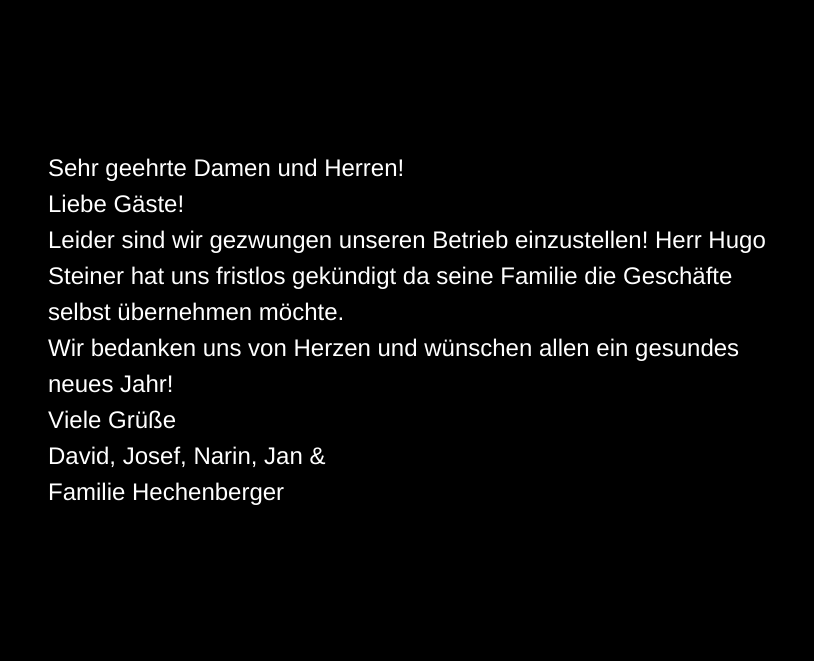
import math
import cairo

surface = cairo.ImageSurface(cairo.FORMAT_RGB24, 814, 661)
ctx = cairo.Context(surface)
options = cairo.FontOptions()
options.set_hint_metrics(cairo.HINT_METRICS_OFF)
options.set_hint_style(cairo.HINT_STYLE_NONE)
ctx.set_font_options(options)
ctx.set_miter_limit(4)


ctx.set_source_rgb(0, 0, 0)
ctx.paint()
ctx.select_font_face("Liberation Sans")
ctx.set_font_size(24)
ctx.set_source_rgb(1, 1, 1)
ctx.move_to(48, 176)
ctx.show_text("Sehr geehrte Damen und Herren!")
ctx.move_to(48, 212)
ctx.show_text("Liebe Gäste!")
ctx.move_to(48, 248)
ctx.show_text("Leider sind wir gezwungen unseren Betrieb einzustellen! Herr Hugo")
ctx.move_to(48, 284)
ctx.show_text("Steiner hat uns fristlos gekündigt da seine Familie die Geschäfte")
ctx.move_to(48, 320)
ctx.show_text("selbst übernehmen möchte.")
ctx.move_to(48, 356)
ctx.show_text("Wir bedanken uns von Herzen und wünschen allen ein gesundes")
ctx.move_to(48, 392)
ctx.show_text("neues Jahr!")
ctx.move_to(48, 428)
ctx.show_text("Viele Grüße")
ctx.move_to(48, 464)
ctx.show_text("David, Josef, Narin, Jan &")
ctx.move_to(48, 500)
ctx.show_text("Familie Hechenberger")
surface.write_to_png("page.png")
